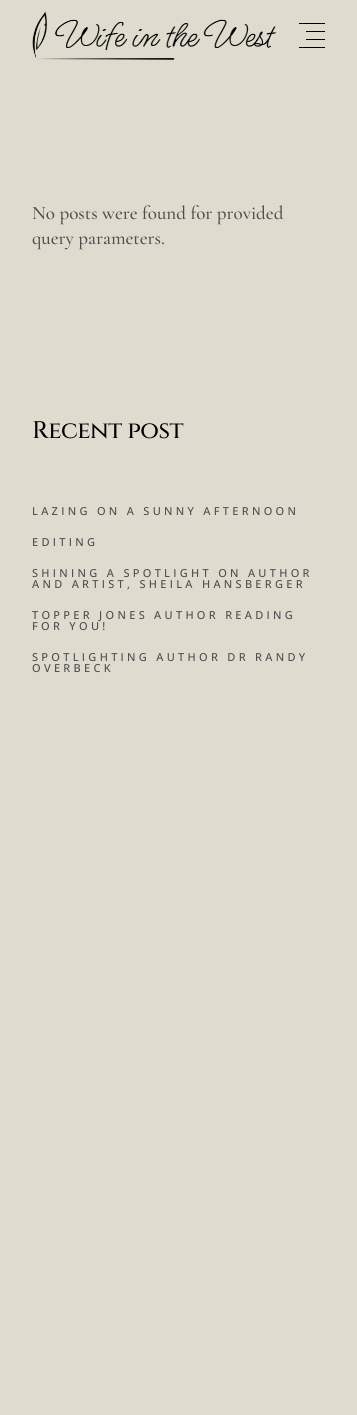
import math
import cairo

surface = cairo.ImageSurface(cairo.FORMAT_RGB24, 357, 1415)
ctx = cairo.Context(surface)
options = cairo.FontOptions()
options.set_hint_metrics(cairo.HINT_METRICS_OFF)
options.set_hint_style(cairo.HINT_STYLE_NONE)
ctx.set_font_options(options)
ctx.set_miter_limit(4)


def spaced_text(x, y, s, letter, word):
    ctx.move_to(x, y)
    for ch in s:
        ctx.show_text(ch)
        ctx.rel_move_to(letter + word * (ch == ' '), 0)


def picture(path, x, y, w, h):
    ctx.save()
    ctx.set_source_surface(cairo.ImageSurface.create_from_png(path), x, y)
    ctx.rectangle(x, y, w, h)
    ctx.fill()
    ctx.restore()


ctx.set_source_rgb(0.875, 0.863, 0.812)
ctx.paint()
picture("img1.png", 32, 11, 244, 49)
ctx.set_source_rgb(0, 0, 0)
ctx.rectangle(299, 23, 26, 1)
ctx.fill()
ctx.rectangle(306, 31, 19, 1)
ctx.fill()
ctx.rectangle(306, 39, 19, 1)
ctx.fill()
ctx.rectangle(299, 47, 26, 1)
ctx.fill()
ctx.select_font_face("Cormorant Garamond Medium")
ctx.set_font_size(19)
ctx.set_source_rgb(0.302, 0.302, 0.302)
ctx.move_to(32, 219)
ctx.show_text("No posts were found for provided")
ctx.move_to(32, 244)
ctx.show_text("query parameters.")
ctx.select_font_face("Cinzel Medium")
ctx.set_font_size(24)
ctx.set_source_rgb(0, 0, 0)
spaced_text(32, 438, "Recent post", -0.5, 0)
ctx.select_font_face("Open Sans Medium")
ctx.set_font_size(11)
ctx.set_source_rgb(0.302, 0.302, 0.302)
spaced_text(32, 515, "LAZING ON A SUNNY AFTERNOON", 3.3, 0)
spaced_text(32, 546, "EDITING", 3.3, 0)
spaced_text(32, 577, "SHINING A SPOTLIGHT ON AUTHOR", 3.3, 0)
spaced_text(32, 588, "AND ARTIST, SHEILA HANSBERGER", 3.3, 0)
spaced_text(32, 619, "TOPPER JONES AUTHOR READING", 3.3, 0)
spaced_text(32, 630, "FOR YOU!", 3.3, 0)
spaced_text(32, 661, "SPOTLIGHTING AUTHOR DR RANDY", 3.3, 0)
spaced_text(32, 672, "OVERBECK", 3.3, 0)
surface.write_to_png("page.png")
